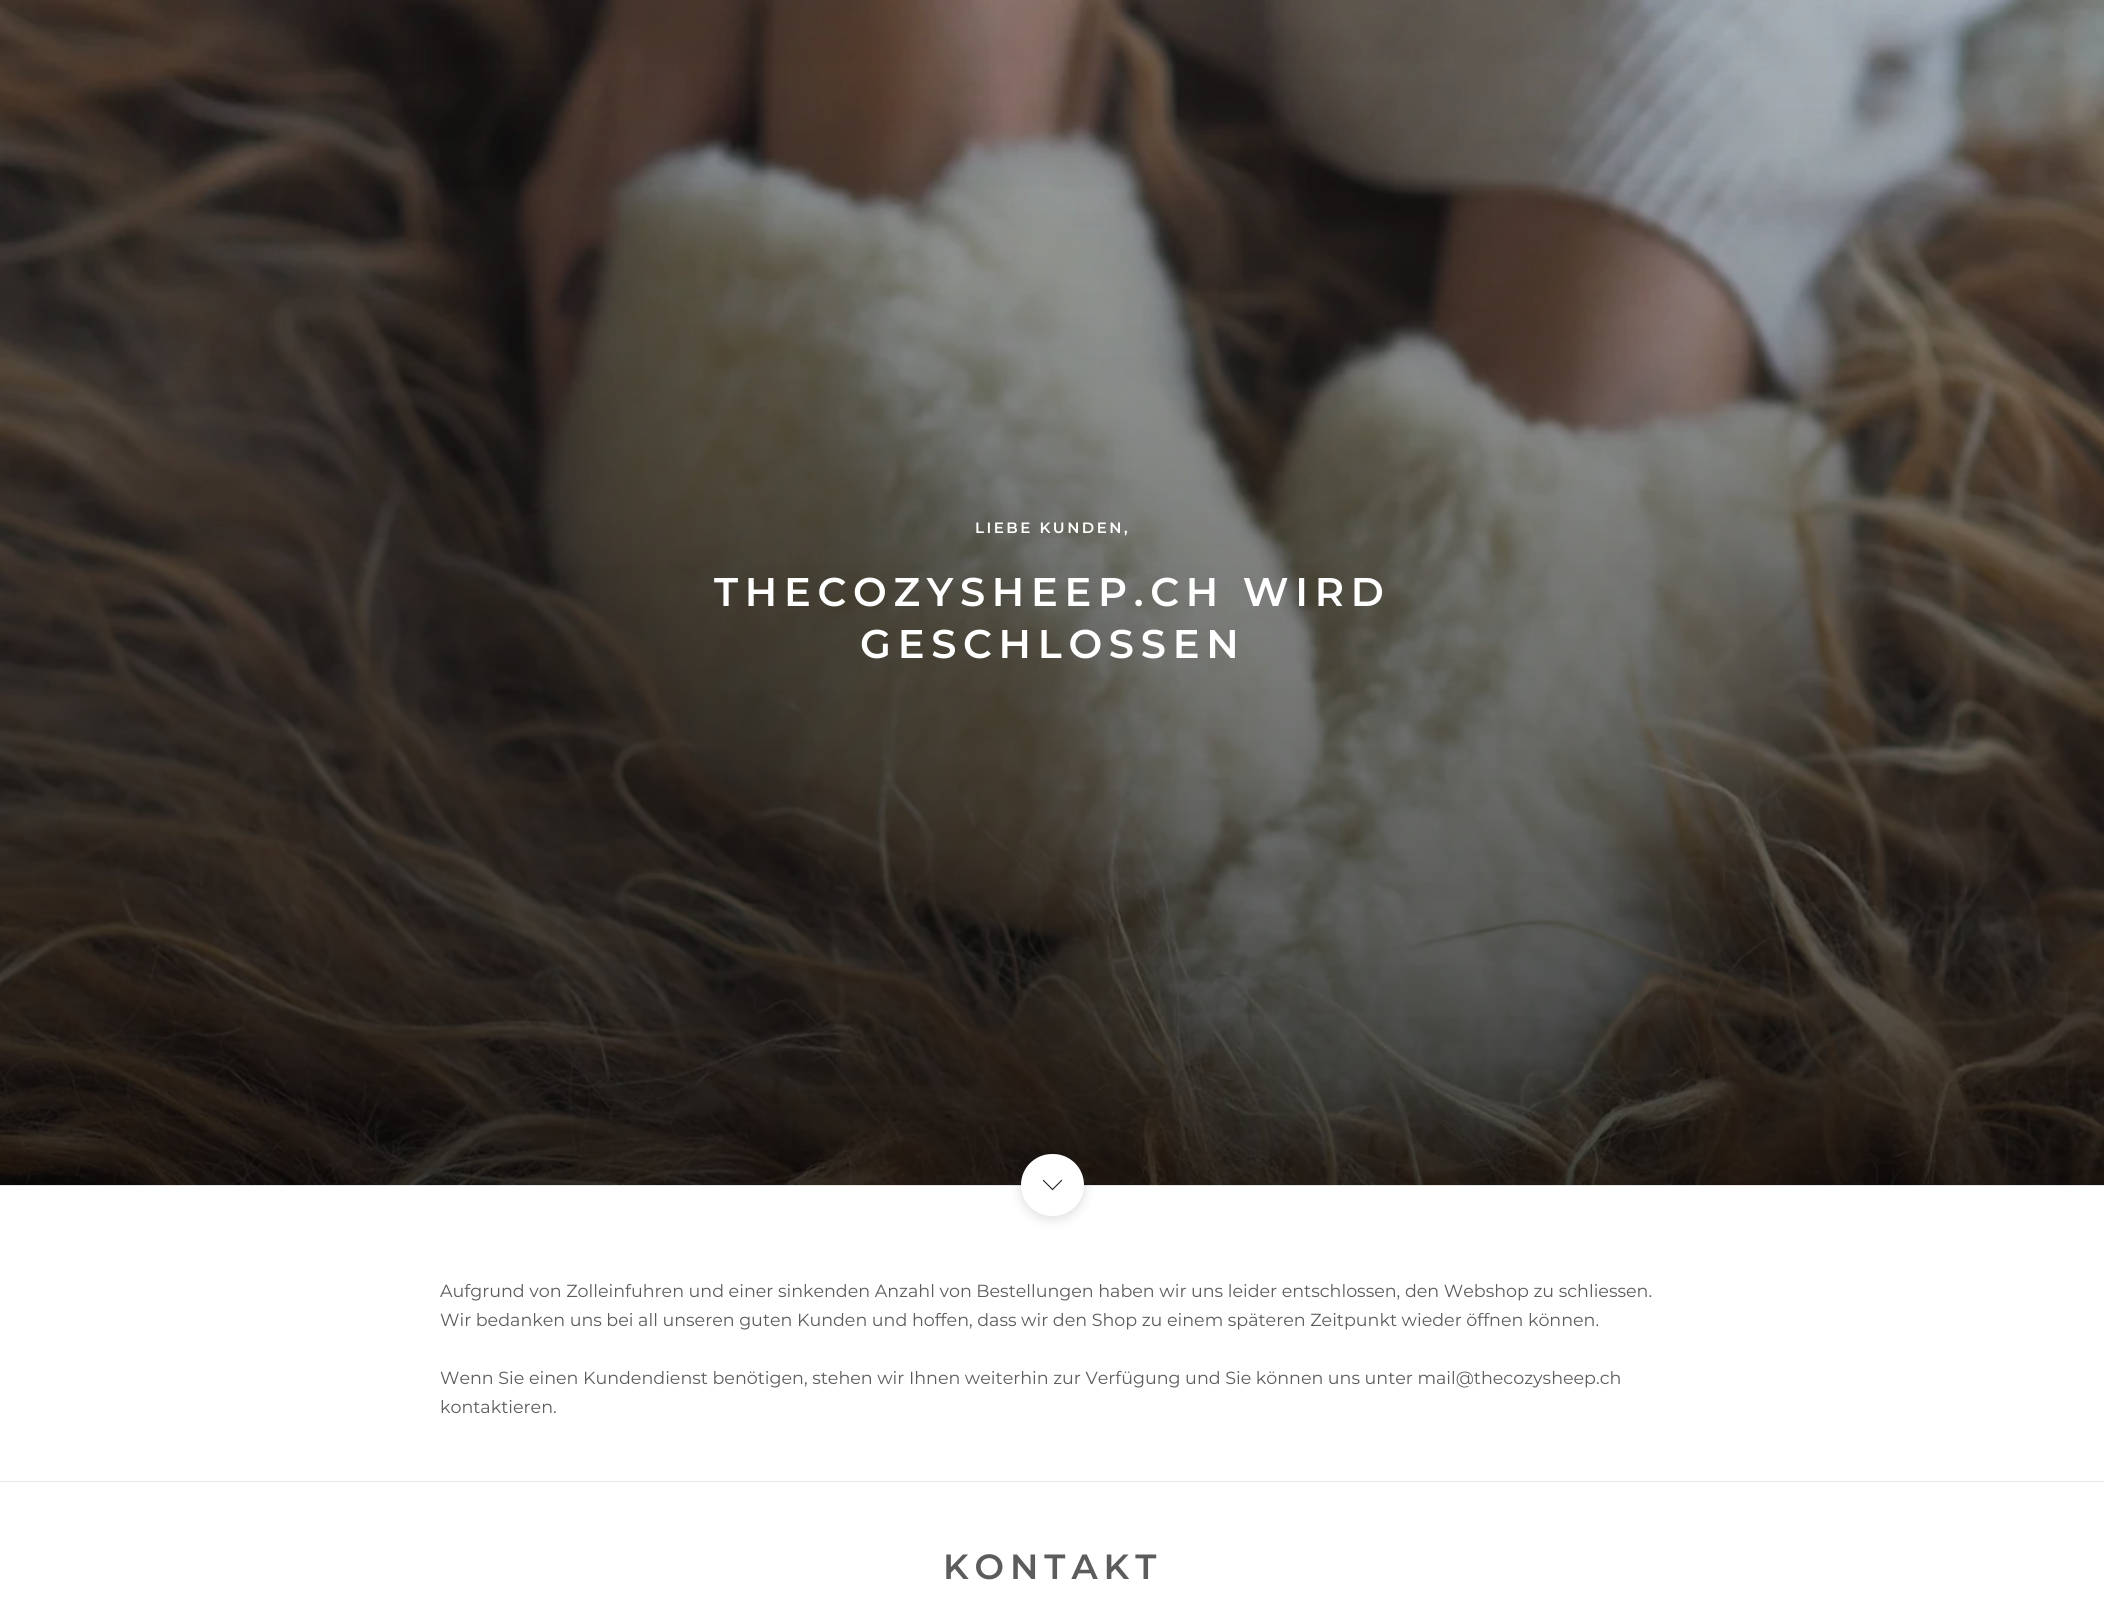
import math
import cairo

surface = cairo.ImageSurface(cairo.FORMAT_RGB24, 2104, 1605)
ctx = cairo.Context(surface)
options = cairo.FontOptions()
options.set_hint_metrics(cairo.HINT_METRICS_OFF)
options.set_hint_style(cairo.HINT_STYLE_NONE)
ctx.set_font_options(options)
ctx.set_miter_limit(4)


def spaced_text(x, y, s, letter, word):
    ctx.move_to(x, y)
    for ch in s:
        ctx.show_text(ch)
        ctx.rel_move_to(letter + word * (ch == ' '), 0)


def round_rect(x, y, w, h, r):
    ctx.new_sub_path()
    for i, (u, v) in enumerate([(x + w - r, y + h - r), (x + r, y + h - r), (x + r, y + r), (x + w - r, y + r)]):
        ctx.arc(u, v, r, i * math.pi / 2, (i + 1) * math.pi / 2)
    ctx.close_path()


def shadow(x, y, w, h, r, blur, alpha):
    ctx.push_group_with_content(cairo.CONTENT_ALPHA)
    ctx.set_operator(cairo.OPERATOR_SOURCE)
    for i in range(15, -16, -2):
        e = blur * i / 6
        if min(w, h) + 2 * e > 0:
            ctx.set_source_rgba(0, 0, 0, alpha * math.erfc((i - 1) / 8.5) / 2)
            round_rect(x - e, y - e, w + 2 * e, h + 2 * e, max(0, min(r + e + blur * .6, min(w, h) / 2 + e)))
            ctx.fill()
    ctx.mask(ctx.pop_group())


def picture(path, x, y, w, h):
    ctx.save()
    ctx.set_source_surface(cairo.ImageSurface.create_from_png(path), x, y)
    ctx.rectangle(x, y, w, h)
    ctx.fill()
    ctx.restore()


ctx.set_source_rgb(1, 1, 1)
ctx.paint()
picture("img1.png", 0, 0, 2104, 1185)
ctx.select_font_face("Montserrat SemiBold")
ctx.set_font_size(15)
ctx.set_source_rgb(1, 1, 1)
spaced_text(975, 533, "LIEBE KUNDEN,", 2.5, 0)
ctx.set_font_size(40)
spaced_text(714, 606, "THECOZYSHEEP.CH WIRD", 6.75, 0)
spaced_text(860, 658, "GESCHLOSSEN", 6.75, 0)
ctx.set_source_rgb(0.906, 0.906, 0.906)
ctx.rectangle(0, 1185, 2104, 1)
ctx.fill()
ctx.set_source_rgb(0.11, 0.11, 0.11)
shadow(1021, 1156, 63, 63, 31.5, 6, 0.15)
ctx.set_source_rgb(1, 1, 1)
round_rect(1021, 1154, 63, 62, 31)
ctx.fill()
ctx.new_path()
ctx.move_to(1043.5, 1180.5)
ctx.line_to(1052.5, 1189.5)
ctx.line_to(1061.5, 1180.5)
ctx.set_source_rgb(0.11, 0.11, 0.11)
ctx.set_line_width(1.1)
ctx.set_line_cap(cairo.LINE_CAP_SQUARE)
ctx.stroke()
ctx.select_font_face("Montserrat")
ctx.set_font_size(17.5)
ctx.set_source_rgb(0.361, 0.361, 0.361)
ctx.move_to(440, 1297)
ctx.show_text("Aufgrund von Zolleinfuhren und einer sinkenden Anzahl von Bestellungen haben wir uns leider entschlossen, den Webshop zu schliessen.")
ctx.move_to(440, 1326)
ctx.show_text("Wir bedanken uns bei all unseren guten Kunden und hoffen, dass wir den Shop zu einem späteren Zeitpunkt wieder öffnen können.")
ctx.move_to(440, 1384)
ctx.show_text("Wenn Sie einen Kundendienst benötigen, stehen wir Ihnen weiterhin zur Verfügung und Sie können uns unter mail@thecozysheep.ch")
ctx.move_to(440, 1413)
ctx.show_text("kontaktieren.")
ctx.set_source_rgb(0.906, 0.906, 0.906)
ctx.rectangle(0, 1481, 2104, 1)
ctx.fill()
ctx.select_font_face("Montserrat SemiBold")
ctx.set_font_size(35)
ctx.set_source_rgb(0.361, 0.361, 0.361)
spaced_text(943, 1579, "KONTAKT", 6, 0)
surface.write_to_png("page.png")
